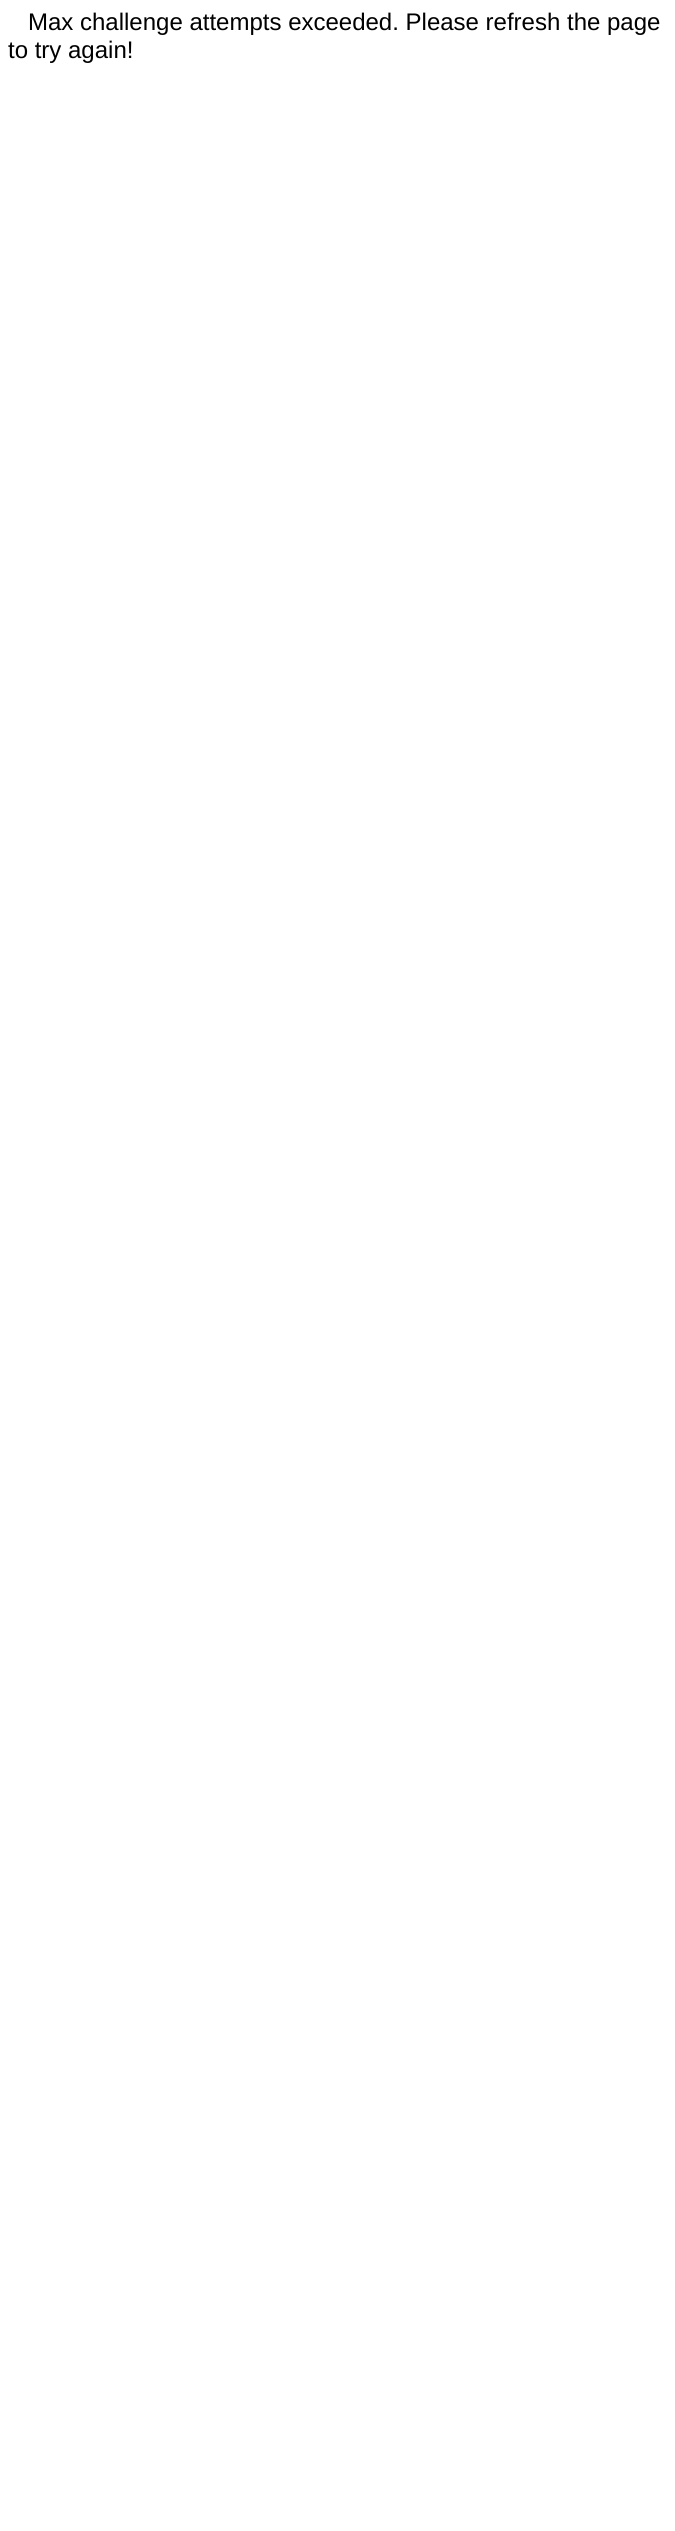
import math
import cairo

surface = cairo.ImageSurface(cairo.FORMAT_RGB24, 675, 2531)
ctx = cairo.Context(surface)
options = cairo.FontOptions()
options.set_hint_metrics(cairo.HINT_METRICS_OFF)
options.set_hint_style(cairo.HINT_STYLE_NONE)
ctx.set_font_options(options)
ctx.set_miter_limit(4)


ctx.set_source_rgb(1, 1, 1)
ctx.paint()
ctx.select_font_face("Liberation Sans")
ctx.set_font_size(24)
ctx.set_source_rgb(0, 0, 0)
ctx.move_to(28, 30)
ctx.show_text("Max challenge attempts exceeded. Please refresh the page")
ctx.move_to(8, 58)
ctx.show_text("to try again!")
surface.write_to_png("page.png")
